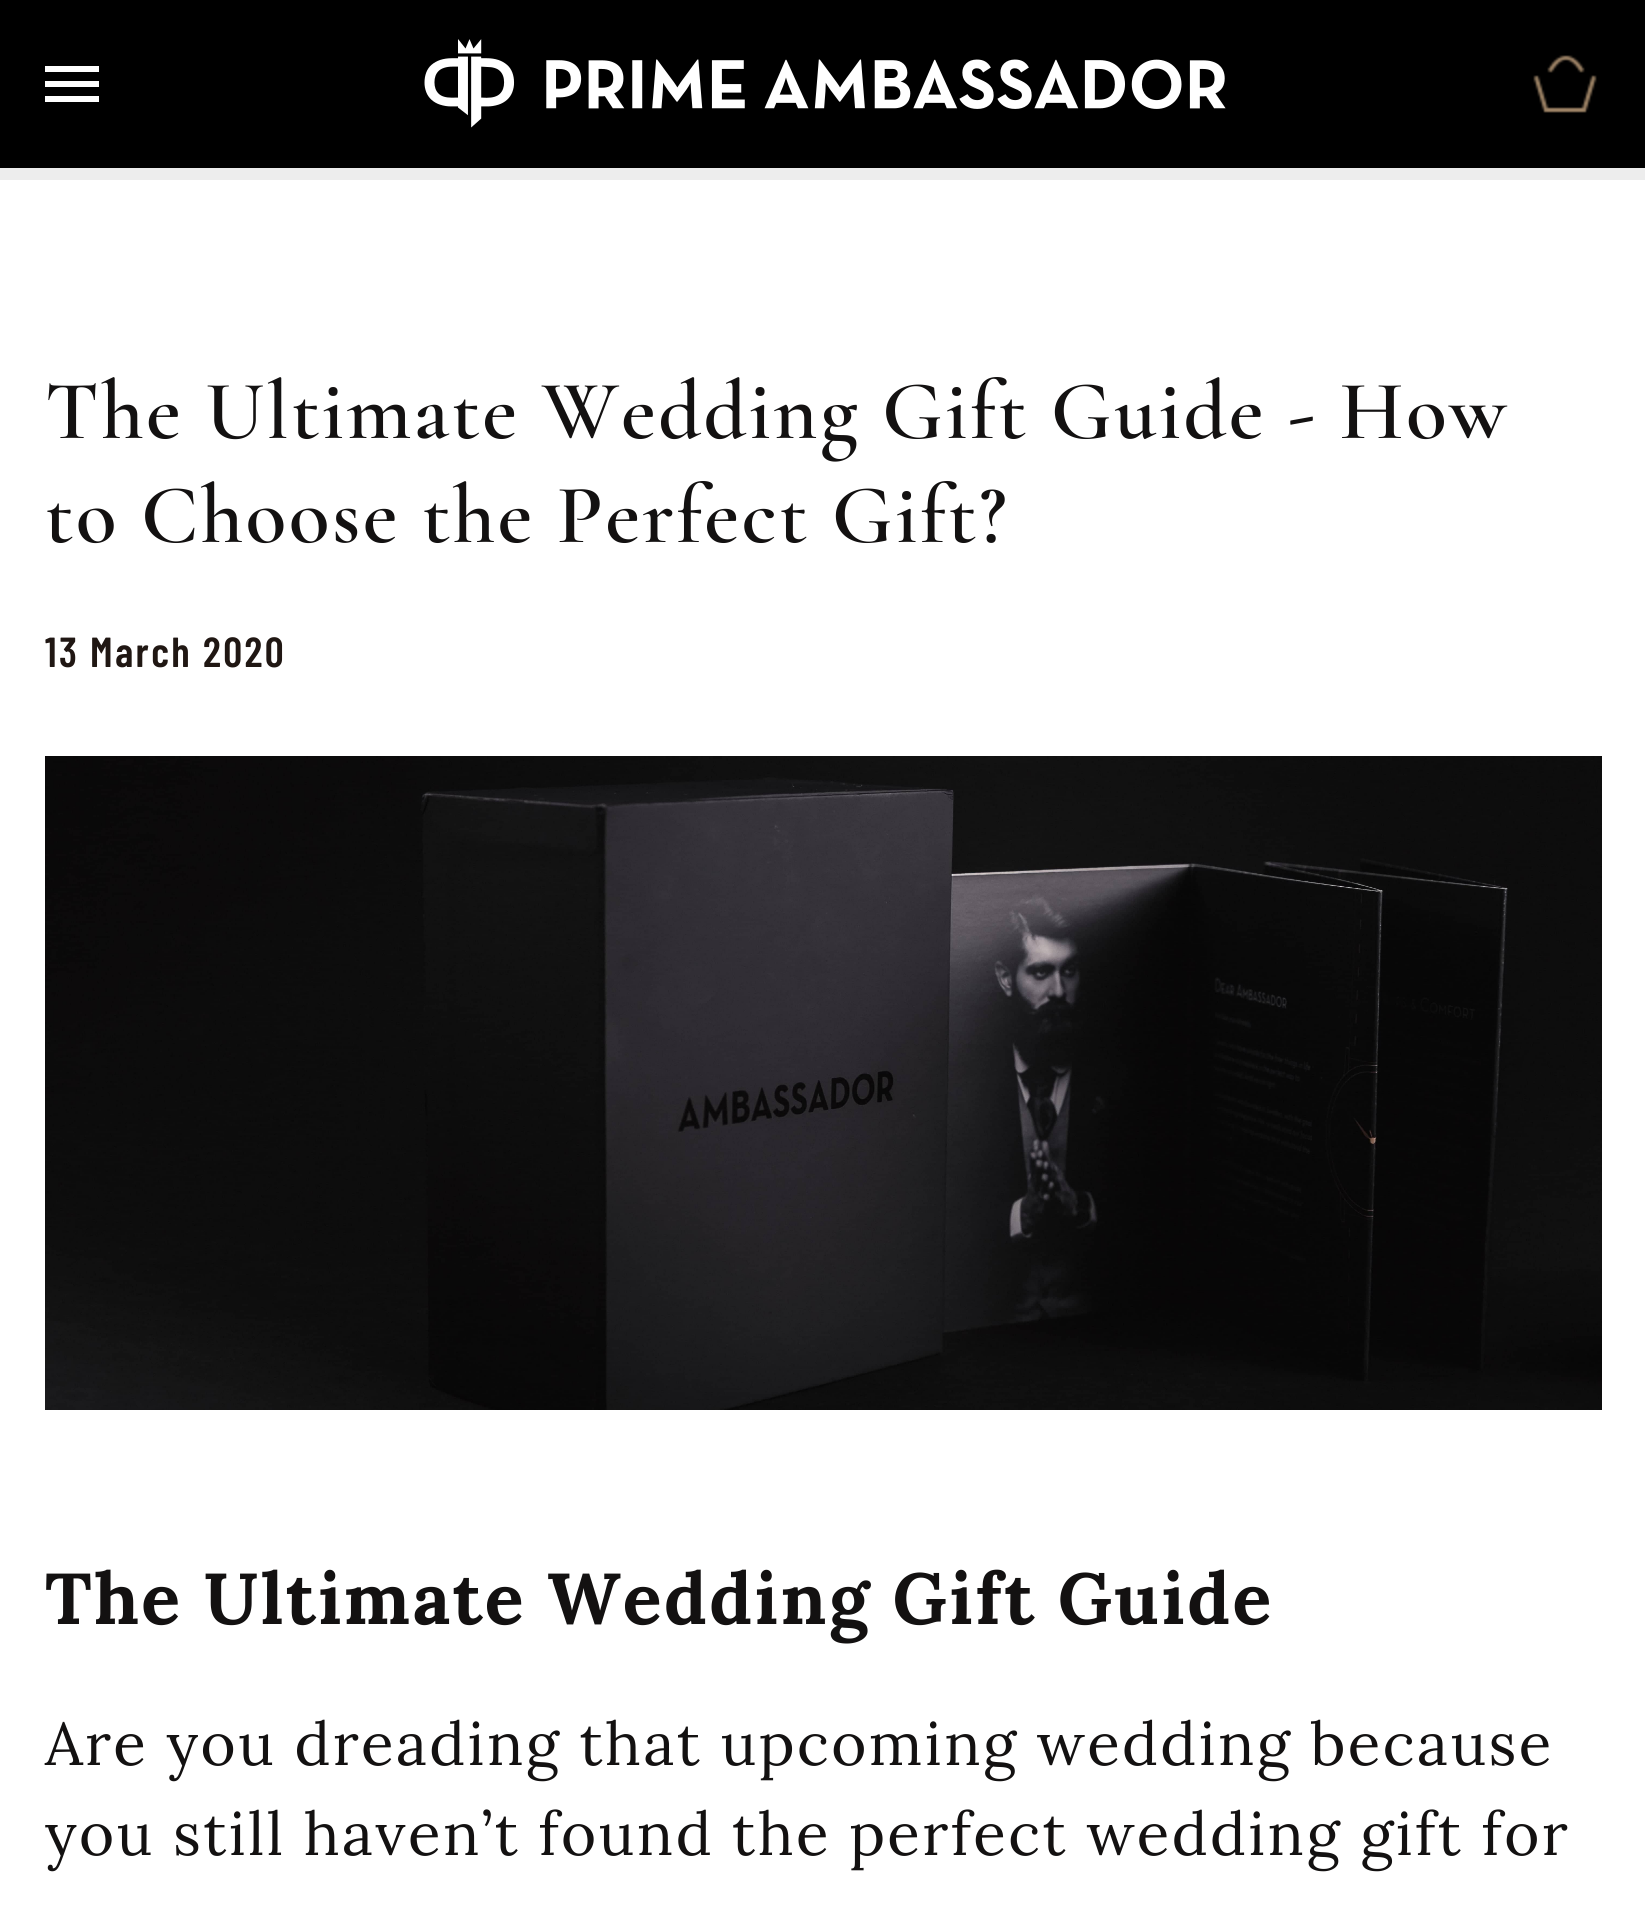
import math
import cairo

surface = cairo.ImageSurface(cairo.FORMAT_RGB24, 1645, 1927)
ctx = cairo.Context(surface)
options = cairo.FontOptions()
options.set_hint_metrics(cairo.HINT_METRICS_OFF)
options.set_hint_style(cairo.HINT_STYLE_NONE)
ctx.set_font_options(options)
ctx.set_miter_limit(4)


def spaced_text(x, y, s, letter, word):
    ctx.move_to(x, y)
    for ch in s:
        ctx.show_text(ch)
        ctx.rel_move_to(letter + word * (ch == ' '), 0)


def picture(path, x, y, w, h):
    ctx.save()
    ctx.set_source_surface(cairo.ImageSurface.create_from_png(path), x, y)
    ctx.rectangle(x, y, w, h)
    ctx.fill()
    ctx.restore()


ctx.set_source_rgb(0.929, 0.929, 0.929)
ctx.paint()
ctx.set_source_rgb(0, 0, 0)
ctx.rectangle(0, 0, 1645, 168)
ctx.fill()
ctx.set_source_rgb(1, 1, 1)
ctx.rectangle(45, 66, 54, 6)
ctx.fill()
ctx.rectangle(45, 81, 54, 6)
ctx.fill()
ctx.rectangle(45, 96, 54, 6)
ctx.fill()
picture("img1.png", 424, 39, 802, 89)
picture("img2.png", 1533, 55, 64, 58)
ctx.rectangle(0, 180, 1645, 1747)
ctx.fill()
ctx.select_font_face("Cormorant Garamond SemiBold")
ctx.set_font_size(84)
ctx.set_source_rgb(0.078, 0.067, 0.067)
spaced_text(45, 438, "The Ultimate Wedding Gift Guide - How", 2.4, 0)
spaced_text(45, 542, "to Choose the Perfect Gift?", 2.4, 0)
ctx.select_font_face("Barlow Condensed SemiBold")
ctx.set_font_size(42)
ctx.set_source_rgb(0.125, 0.09, 0.078)
spaced_text(45, 667, "13 March 2020", 2.4, 0)
picture("img3.png", 45, 756, 1557, 654)
ctx.select_font_face("Lora", cairo.FONT_SLANT_NORMAL, cairo.FONT_WEIGHT_BOLD)
ctx.set_font_size(72)
ctx.set_source_rgb(0.078, 0.067, 0.067)
spaced_text(45, 1624, "The Ultimate Wedding Gift Guide", 2.4, 0)
ctx.select_font_face("Lora")
ctx.set_font_size(60)
spaced_text(45, 1765, "Are you dreading that upcoming wedding because", 2.4, 0)
spaced_text(45, 1855, "you still haven’t found the perfect wedding gift for", 2.4, 0)
surface.write_to_png("page.png")
